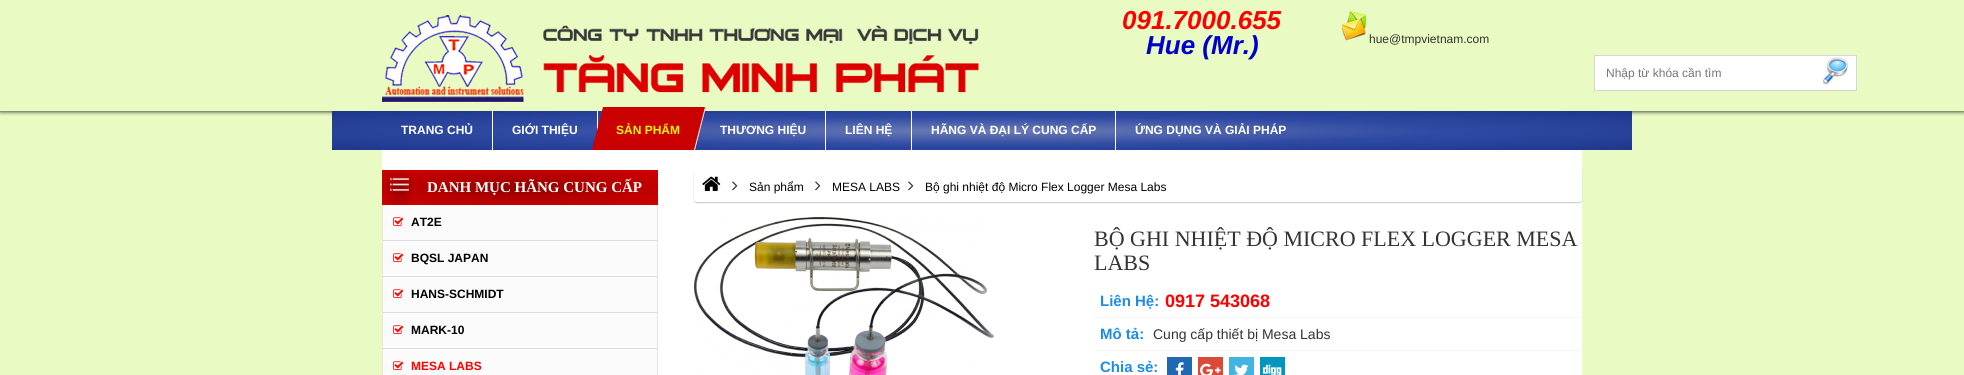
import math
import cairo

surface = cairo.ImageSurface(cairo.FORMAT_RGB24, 1964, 375)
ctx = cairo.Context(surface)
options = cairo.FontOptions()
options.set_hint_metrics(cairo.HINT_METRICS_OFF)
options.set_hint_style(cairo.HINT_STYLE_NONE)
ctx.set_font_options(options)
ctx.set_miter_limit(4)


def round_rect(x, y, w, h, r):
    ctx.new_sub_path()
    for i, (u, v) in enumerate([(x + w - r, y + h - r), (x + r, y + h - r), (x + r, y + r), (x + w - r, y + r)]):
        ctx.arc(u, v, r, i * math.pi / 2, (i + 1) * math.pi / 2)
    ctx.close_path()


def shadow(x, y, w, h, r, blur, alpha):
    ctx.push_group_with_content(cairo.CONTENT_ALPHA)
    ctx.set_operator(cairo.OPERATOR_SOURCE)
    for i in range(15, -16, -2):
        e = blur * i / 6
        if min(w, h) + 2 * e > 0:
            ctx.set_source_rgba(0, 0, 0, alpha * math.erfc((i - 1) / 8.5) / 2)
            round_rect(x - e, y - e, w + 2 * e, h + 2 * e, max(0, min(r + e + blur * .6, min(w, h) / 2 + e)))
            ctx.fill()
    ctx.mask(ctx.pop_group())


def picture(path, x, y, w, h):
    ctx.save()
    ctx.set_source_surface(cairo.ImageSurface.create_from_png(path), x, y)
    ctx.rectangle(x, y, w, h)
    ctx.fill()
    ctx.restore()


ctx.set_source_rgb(0.914, 0.98, 0.761)
ctx.paint()
ctx.save()
ctx.rectangle(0, 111, 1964, 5)
ctx.clip()
ctx.set_source_rgb(0, 0, 0)
shadow(0, 0, 1964, 111, 0, 2.5, 1)
ctx.restore()
picture("img1.png", 382, 15, 597, 87)
ctx.select_font_face("Liberation Sans", cairo.FONT_SLANT_ITALIC, cairo.FONT_WEIGHT_BOLD)
ctx.set_font_size(26)
ctx.set_source_rgb(1, 0, 0)
ctx.move_to(1122, 29)
ctx.show_text("091.7000.655")
ctx.set_source_rgb(0, 0, 0.8)
ctx.move_to(1146, 54)
ctx.show_text("Hue (Mr.)")
picture("img2.png", 1342, 10, 24, 31)
ctx.select_font_face("Liberation Sans")
ctx.set_font_size(12)
ctx.set_source_rgb(0.2, 0.2, 0.2)
ctx.move_to(1369, 43)
ctx.show_text("hue@tmpvietnam.com")
ctx.set_source_rgb(1, 1, 1)
ctx.rectangle(1594.5, 55.5, 262, 35)
ctx.fill_preserve()
ctx.set_source_rgb(0.839, 0.839, 0.839)
ctx.set_line_width(1)
ctx.stroke()
ctx.set_source_rgb(0.459, 0.459, 0.459)
ctx.move_to(1606, 77)
ctx.show_text("Nhập từ khóa cần tìm")
picture("img3.png", 1822, 57, 26, 28)
gradient = cairo.RadialGradient(0, 0, 0, 0, 0, 1)
gradient.set_matrix(cairo.Matrix(1 / 919, 0, 0, 1 / 28, -1 * 982 / 919, -1 * 131 / 28))
gradient.add_color_stop_rgba(0, 0.42, 0.486, 0.71, 1)
gradient.add_color_stop_rgba(0.5, 0.184, 0.29, 0.639, 1)
gradient.add_color_stop_rgba(1, 0.114, 0.212, 0.549, 1)
ctx.set_source(gradient)
ctx.rectangle(332, 111, 1300, 39)
ctx.fill()
ctx.set_source_rgb(1, 1, 1)
ctx.rectangle(492, 111, 1, 39)
ctx.fill()
ctx.select_font_face("Liberation Sans", cairo.FONT_SLANT_NORMAL, cairo.FONT_WEIGHT_BOLD)
ctx.move_to(401, 134)
ctx.show_text("TRANG CHỦ")
ctx.rectangle(597, 111, 1, 20)
ctx.fill()
ctx.move_to(512, 134)
ctx.show_text("GIỚI THIỆU")
ctx.set_source_rgb(0.796, 0, 0)
ctx.new_path()
ctx.move_to(603, 107)
ctx.line_to(706, 107)
ctx.line_to(695, 150)
ctx.line_to(592, 150)
ctx.close_path()
ctx.fill()
ctx.set_source_rgb(1, 1, 1)
ctx.new_path()
ctx.move_to(705, 107)
ctx.line_to(706, 107)
ctx.line_to(695, 150)
ctx.line_to(694, 150)
ctx.close_path()
ctx.fill()
ctx.set_source_rgb(1, 0.965, 0)
ctx.move_to(616, 134)
ctx.show_text("SẢN PHẨM")
ctx.set_source_rgb(1, 1, 1)
ctx.rectangle(825, 111, 1, 39)
ctx.fill()
ctx.move_to(720, 134)
ctx.show_text("THƯƠNG HIỆU")
ctx.rectangle(911, 111, 1, 39)
ctx.fill()
ctx.move_to(845, 134)
ctx.show_text("LIÊN HỆ")
ctx.rectangle(1115, 111, 1, 39)
ctx.fill()
ctx.move_to(931, 134)
ctx.show_text("HÃNG VÀ ĐẠI LÝ CUNG CẤP")
ctx.move_to(1135, 134)
ctx.show_text("ỨNG DỤNG VÀ GIẢI PHÁP")
ctx.rectangle(382, 150, 1200, 225)
ctx.fill()
gradient = cairo.RadialGradient(0, 0, 0, 0, 0, 1)
gradient.set_matrix(cairo.Matrix(1 / 195, 0, 0, 1 / 25, -1 * 520 / 195, -1 * 188 / 25))
gradient.add_color_stop_rgba(0, 0.561, 0, 0, 1)
gradient.add_color_stop_rgba(0.5, 0.714, 0, 0, 1)
gradient.add_color_stop_rgba(1, 0.824, 0, 0, 1)
ctx.set_source(gradient)
ctx.rectangle(417, 170, 241, 35)
ctx.fill()
gradient = cairo.RadialGradient(400, 188, 0, 400, 188, 25)
gradient.add_color_stop_rgba(0, 0.561, 0, 0, 1)
gradient.add_color_stop_rgba(0.5, 0.714, 0, 0, 1)
gradient.add_color_stop_rgba(1, 0.824, 0, 0, 1)
ctx.set_source(gradient)
ctx.rectangle(382, 170, 35, 35)
ctx.fill()
picture("img4.png", 390, 178, 19, 13)
ctx.select_font_face("Liberation Serif", cairo.FONT_SLANT_NORMAL, cairo.FONT_WEIGHT_BOLD)
ctx.set_font_size(15)
ctx.set_source_rgb(1, 1, 1)
ctx.move_to(427, 192)
ctx.show_text("DANH MỤC HÃNG CUNG CẤP")
ctx.set_source_rgb(0.902, 0.902, 0.902)
ctx.set_fill_rule(cairo.FILL_RULE_EVEN_ODD)
ctx.new_path()
ctx.move_to(382, 205)
ctx.line_to(658, 205)
ctx.line_to(658, 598)
ctx.curve_to(658, 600, 657, 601, 655, 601)
ctx.line_to(385, 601)
ctx.curve_to(383, 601, 382, 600, 382, 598)
ctx.close_path()
ctx.move_to(383, 205)
ctx.line_to(657, 205)
ctx.line_to(657, 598)
ctx.curve_to(657, 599, 656, 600, 655, 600)
ctx.line_to(385, 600)
ctx.curve_to(384, 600, 383, 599, 383, 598)
ctx.close_path()
ctx.fill()
ctx.set_source_rgb(0.984, 0.984, 0.984)
ctx.rectangle(383, 205, 274, 170)
ctx.fill()
ctx.set_source_rgb(0.863, 0.863, 0.863)
ctx.rectangle(383, 240, 274, 1)
ctx.fill()
picture("img5.png", 393, 217, 11, 9)
ctx.select_font_face("Liberation Sans", cairo.FONT_SLANT_NORMAL, cairo.FONT_WEIGHT_BOLD)
ctx.set_font_size(12)
ctx.set_source_rgb(0, 0, 0)
ctx.move_to(411, 226)
ctx.show_text("AT2E")
ctx.set_source_rgb(0.863, 0.863, 0.863)
ctx.rectangle(383, 276, 274, 1)
ctx.fill()
picture("img5.png", 393, 253, 11, 9)
ctx.set_source_rgb(0, 0, 0)
ctx.move_to(411, 262)
ctx.show_text("BQSL JAPAN")
ctx.set_source_rgb(0.863, 0.863, 0.863)
ctx.rectangle(383, 312, 274, 1)
ctx.fill()
picture("img5.png", 393, 289, 11, 9)
ctx.set_source_rgb(0, 0, 0)
ctx.move_to(411, 298)
ctx.show_text("HANS-SCHMIDT")
ctx.set_source_rgb(0.863, 0.863, 0.863)
ctx.rectangle(383, 348, 274, 1)
ctx.fill()
picture("img5.png", 393, 325, 11, 9)
ctx.set_source_rgb(0, 0, 0)
ctx.move_to(411, 334)
ctx.show_text("MARK-10")
picture("img5.png", 393, 361, 11, 9)
ctx.set_source_rgb(1, 0, 0)
ctx.move_to(411, 370)
ctx.show_text("MESA LABS")
ctx.save()
ctx.new_path()
ctx.move_to(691, 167)
ctx.line_to(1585, 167)
ctx.line_to(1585, 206)
ctx.line_to(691, 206)
ctx.close_path()
ctx.move_to(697, 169)
ctx.line_to(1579, 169)
ctx.curve_to(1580.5, 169, 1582, 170.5, 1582, 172)
ctx.line_to(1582, 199)
ctx.curve_to(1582, 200.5, 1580.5, 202, 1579, 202)
ctx.line_to(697, 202)
ctx.curve_to(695.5, 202, 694, 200.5, 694, 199)
ctx.line_to(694, 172)
ctx.curve_to(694, 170.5, 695.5, 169, 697, 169)
ctx.close_path()
ctx.clip()
ctx.set_source_rgb(0.8, 0.8, 0.8)
shadow(694, 170, 888, 33, 3, 0.5, 1)
ctx.restore()
picture("img6.png", 702, 176, 19, 15)
picture("img7.png", 732, 181, 6, 10)
ctx.select_font_face("Liberation Sans")
ctx.set_source_rgb(0, 0, 0)
ctx.move_to(749, 191)
ctx.show_text("Sản phẩm")
picture("img7.png", 815, 181, 6, 10)
ctx.move_to(832, 191)
ctx.show_text("MESA LABS")
picture("img7.png", 908, 181, 6, 10)
ctx.move_to(925, 191)
ctx.show_text("Bộ ghi nhiệt độ Micro Flex Logger Mesa Labs")
picture("img8.png", 694, 217, 300, 158)
ctx.select_font_face("Liberation Serif")
ctx.set_font_size(22)
ctx.set_source_rgb(0.2, 0.2, 0.2)
ctx.move_to(1094, 246)
ctx.show_text("BỘ GHI NHIỆT ĐỘ MICRO FLEX LOGGER MESA")
ctx.move_to(1094, 270)
ctx.show_text("LABS")
ctx.new_path()
ctx.move_to(1094, 317.5)
ctx.line_to(1582, 317.5)
ctx.set_source_rgb(0.925, 0.925, 0.925)
ctx.set_dash([1, 1])
ctx.stroke()
ctx.select_font_face("Liberation Sans", cairo.FONT_SLANT_NORMAL, cairo.FONT_WEIGHT_BOLD)
ctx.set_font_size(15)
ctx.set_source_rgb(0.114, 0.553, 0.902)
ctx.move_to(1100, 306)
ctx.show_text("Liên Hệ:")
ctx.set_font_size(18)
ctx.set_source_rgb(1, 0, 0)
ctx.move_to(1165, 307)
ctx.show_text("0917 543068")
ctx.new_path()
ctx.move_to(1094, 350.5)
ctx.line_to(1582, 350.5)
ctx.set_source_rgb(0.925, 0.925, 0.925)
ctx.stroke()
ctx.set_font_size(15)
ctx.set_source_rgb(0.114, 0.553, 0.902)
ctx.move_to(1100, 339)
ctx.show_text("Mô tả:")
ctx.select_font_face("Liberation Sans")
ctx.set_font_size(14)
ctx.set_source_rgb(0.2, 0.2, 0.2)
ctx.move_to(1153, 339)
ctx.show_text("Cung cấp thiết bị Mesa Labs")
ctx.select_font_face("Liberation Sans", cairo.FONT_SLANT_NORMAL, cairo.FONT_WEIGHT_BOLD)
ctx.set_font_size(15)
ctx.set_source_rgb(0.114, 0.553, 0.902)
ctx.move_to(1100, 372)
ctx.show_text("Chia sẻ:")
ctx.set_source_rgb(0.122, 0.412, 0.698)
ctx.rectangle(1167, 357, 25, 18)
ctx.fill()
picture("img9.png", 1175, 362, 9, 13)
ctx.set_source_rgb(0.859, 0.29, 0.224)
ctx.rectangle(1198, 357, 25, 18)
ctx.fill()
picture("img10.png", 1200, 363, 21, 12)
ctx.set_source_rgb(0.255, 0.706, 0.89)
ctx.rectangle(1229, 357, 25, 18)
ctx.fill()
picture("img11.png", 1234, 364, 15, 11)
ctx.set_source_rgb(0.004, 0.588, 0.745)
ctx.rectangle(1260, 357, 25, 18)
ctx.fill()
picture("img12.png", 1263, 364, 19, 11)
surface.write_to_png("page.png")
